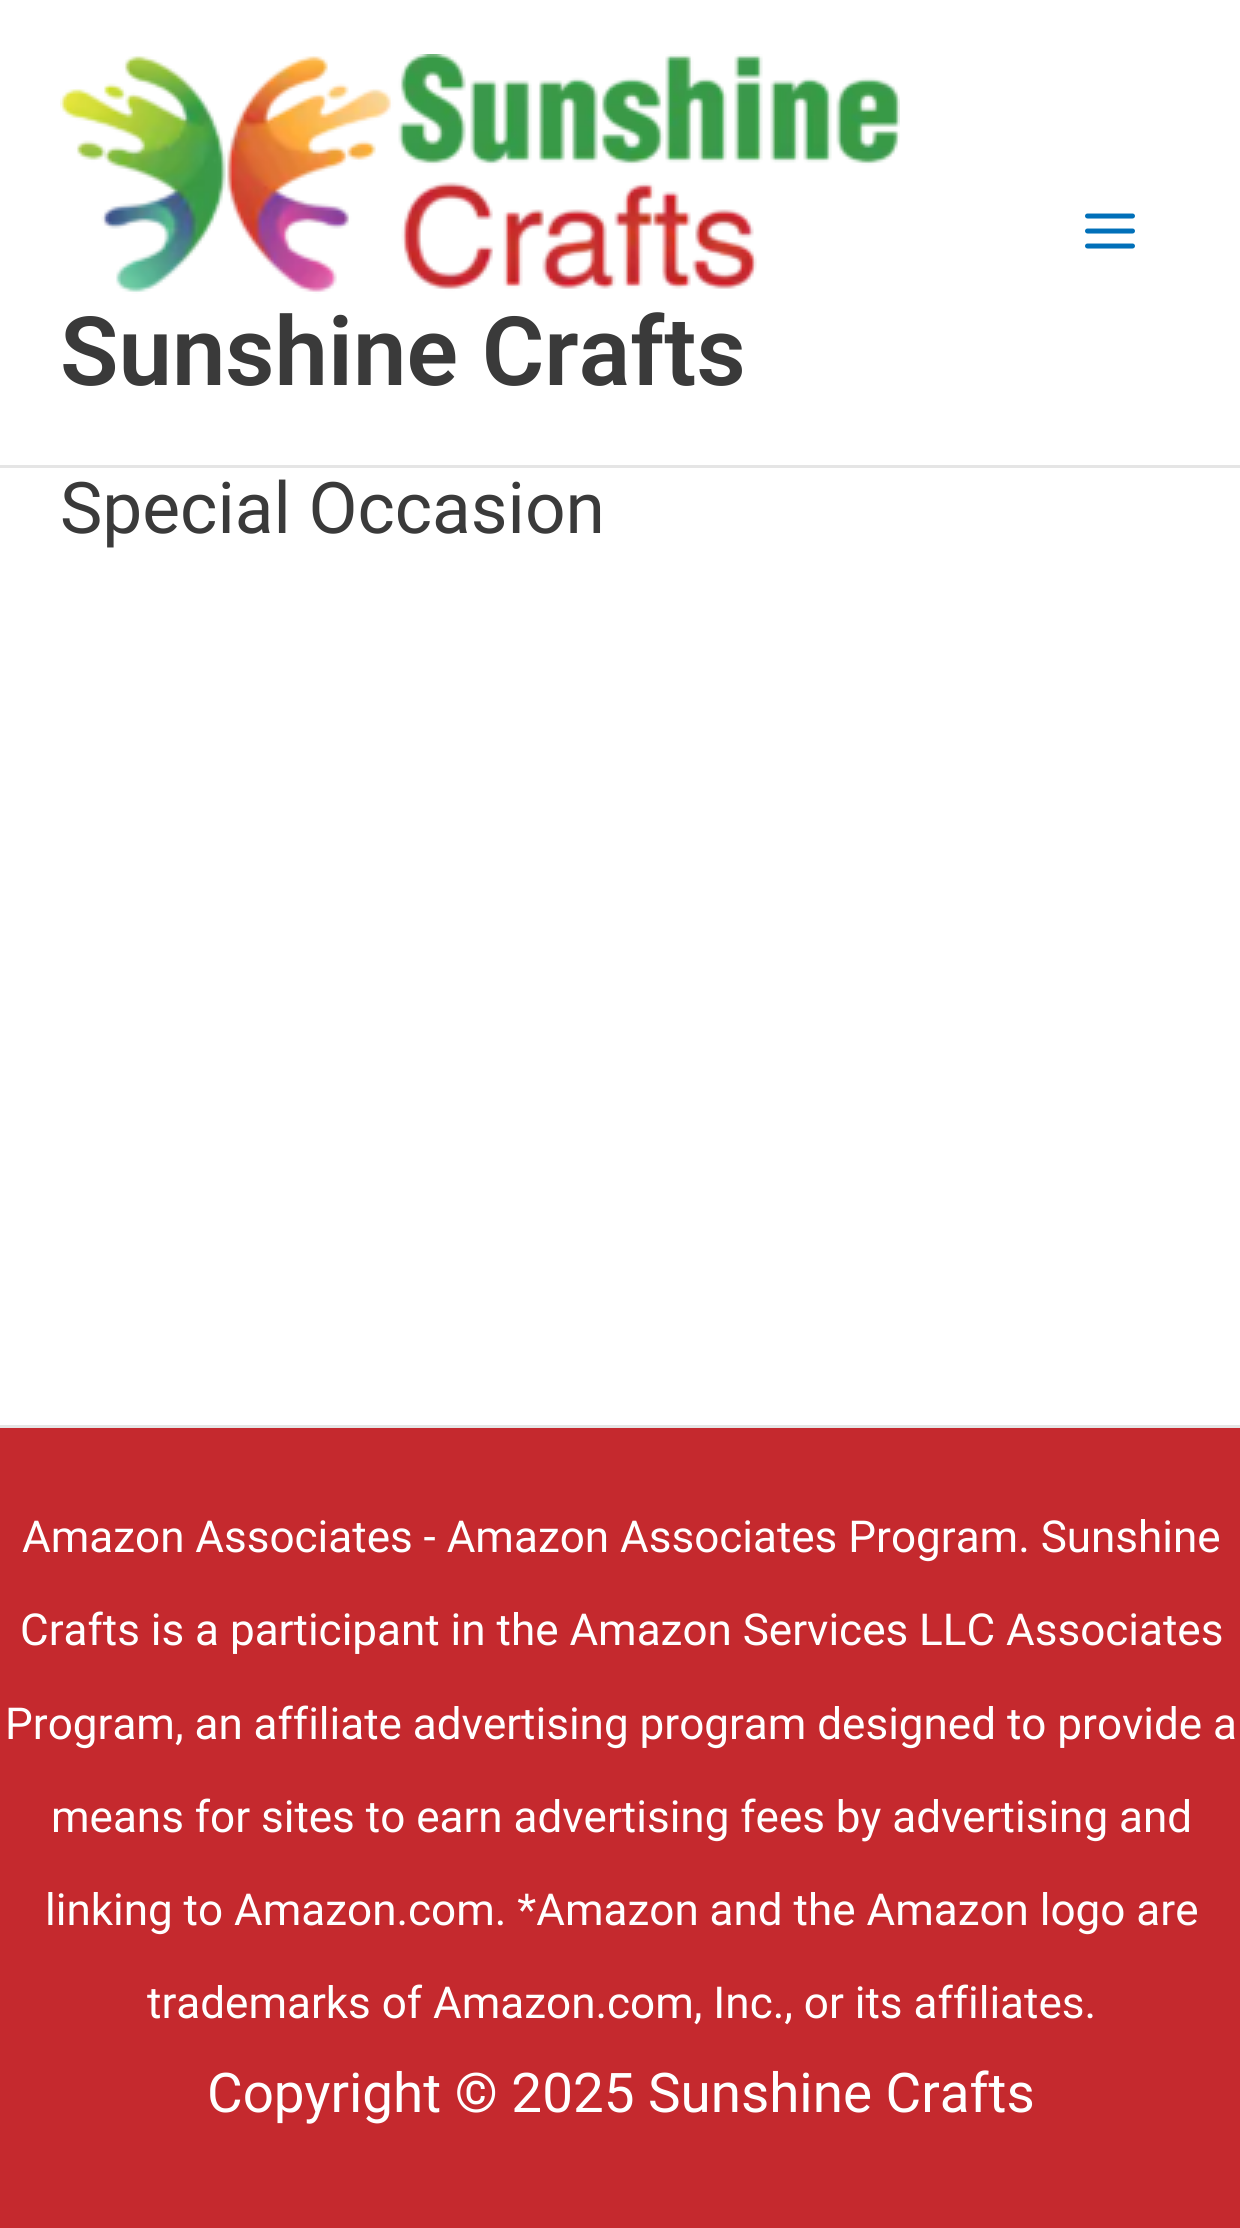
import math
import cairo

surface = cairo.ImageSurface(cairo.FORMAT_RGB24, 1240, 2228)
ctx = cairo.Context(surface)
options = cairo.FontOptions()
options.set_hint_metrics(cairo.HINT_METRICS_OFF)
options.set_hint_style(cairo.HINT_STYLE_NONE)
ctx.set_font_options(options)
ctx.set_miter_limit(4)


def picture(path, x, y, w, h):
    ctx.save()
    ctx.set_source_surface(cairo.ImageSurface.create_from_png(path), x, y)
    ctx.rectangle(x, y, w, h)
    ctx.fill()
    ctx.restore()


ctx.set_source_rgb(1, 1, 1)
ctx.paint()
ctx.set_source_rgb(0.898, 0.898, 0.898)
ctx.rectangle(0, 465, 1240, 3)
ctx.fill()
picture("img1.png", 1085, 213, 50, 36)
picture("img2.png", 60, 54, 840, 240)
ctx.select_font_face("Roboto SemiBold")
ctx.set_font_size(95.75)
ctx.set_source_rgb(0.227, 0.227, 0.227)
ctx.move_to(60, 385)
ctx.show_text("Sunshine Crafts")
ctx.select_font_face("Roboto")
ctx.set_font_size(71.25)
ctx.move_to(60, 533)
ctx.show_text("Special Occasion")
ctx.set_source_rgb(0.773, 0.161, 0.18)
ctx.rectangle(0, 1428, 1240, 800)
ctx.fill()
ctx.set_source_rgb(0.898, 0.898, 0.898)
ctx.rectangle(0, 1425, 1240, 3)
ctx.fill()
ctx.set_font_size(44)
ctx.set_source_rgb(1, 1, 1)
ctx.move_to(22, 1552)
ctx.show_text("Amazon Associates - Amazon Associates Program. Sunshine")
ctx.move_to(20, 1645)
ctx.show_text("Crafts is a participant in the Amazon Services LLC Associates")
ctx.move_to(5, 1739)
ctx.show_text("Program, an affiliate advertising program designed to provide a")
ctx.move_to(51, 1832)
ctx.show_text("means for sites to earn advertising fees by advertising and")
ctx.move_to(45, 1925)
ctx.show_text("linking to Amazon.com. *Amazon and the Amazon logo are")
ctx.move_to(147, 2018)
ctx.show_text("trademarks of Amazon.com, Inc., or its affiliates.")
ctx.set_font_size(54.75)
ctx.move_to(207, 2112)
ctx.show_text("Copyright © 2025 Sunshine Crafts")
surface.write_to_png("page.png")
